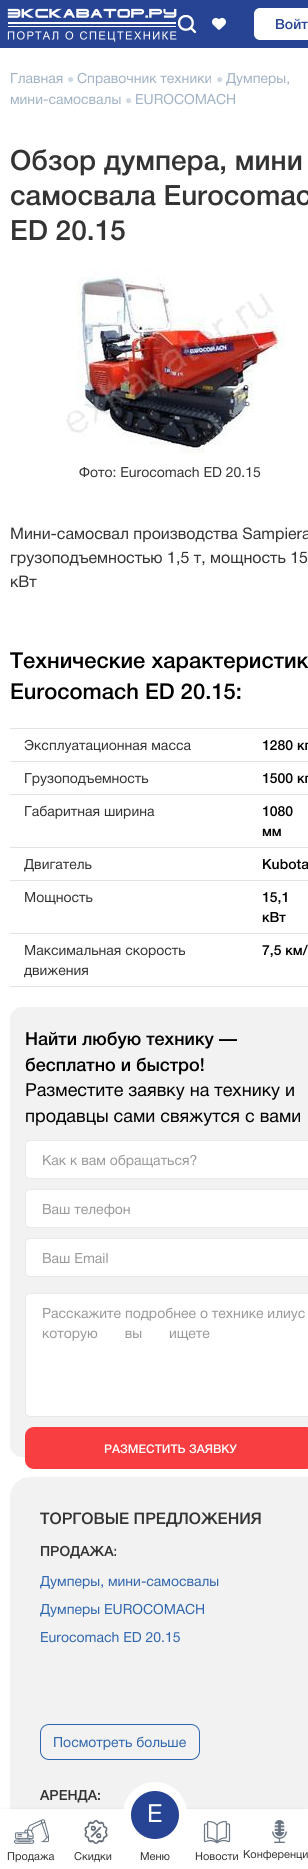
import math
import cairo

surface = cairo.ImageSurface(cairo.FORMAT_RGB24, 308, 1869)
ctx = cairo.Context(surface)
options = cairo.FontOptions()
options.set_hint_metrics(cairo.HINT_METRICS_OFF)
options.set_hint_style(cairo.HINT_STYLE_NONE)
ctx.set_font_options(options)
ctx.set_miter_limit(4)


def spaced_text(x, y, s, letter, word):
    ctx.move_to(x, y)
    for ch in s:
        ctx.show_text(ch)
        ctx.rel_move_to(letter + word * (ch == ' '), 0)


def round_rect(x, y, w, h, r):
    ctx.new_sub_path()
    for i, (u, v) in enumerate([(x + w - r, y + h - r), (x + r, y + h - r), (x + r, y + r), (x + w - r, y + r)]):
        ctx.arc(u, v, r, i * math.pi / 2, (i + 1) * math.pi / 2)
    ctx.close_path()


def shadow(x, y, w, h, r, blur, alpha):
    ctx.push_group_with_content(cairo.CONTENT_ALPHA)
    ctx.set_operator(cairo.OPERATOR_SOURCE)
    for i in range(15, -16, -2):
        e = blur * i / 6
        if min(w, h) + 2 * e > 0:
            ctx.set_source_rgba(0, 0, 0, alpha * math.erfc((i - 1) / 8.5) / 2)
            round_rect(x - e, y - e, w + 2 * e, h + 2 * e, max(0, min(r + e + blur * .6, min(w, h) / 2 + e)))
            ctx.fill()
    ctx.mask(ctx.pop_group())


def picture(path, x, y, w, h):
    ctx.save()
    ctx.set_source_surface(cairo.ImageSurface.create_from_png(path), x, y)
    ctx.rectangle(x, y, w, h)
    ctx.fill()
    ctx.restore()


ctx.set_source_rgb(1, 1, 1)
ctx.paint()
ctx.set_source_rgb(0.149, 0.267, 0.576)
ctx.rectangle(0, 0, 308, 48)
ctx.fill()
picture("img1.png", 7, 8, 170, 34)
picture("img2.png", 178, 15, 18, 18)
picture("img3.png", 212, 17, 14, 13)
ctx.set_source_rgb(1, 1, 1)
round_rect(254.5, 8.5, 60, 31, 5.5)
ctx.fill_preserve()
ctx.set_line_width(1)
ctx.stroke()
ctx.select_font_face("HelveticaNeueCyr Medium")
ctx.set_font_size(14)
ctx.set_source_rgb(0.149, 0.267, 0.576)
ctx.move_to(275, 29)
ctx.show_text("Войт")
ctx.select_font_face("HelveticaNeueCyr")
ctx.set_source_rgb(0.631, 0.698, 0.769)
ctx.move_to(10, 83)
ctx.show_text("Главная")
ctx.select_font_face("Liberation Sans")
ctx.set_font_size(12)
ctx.set_source_rgb(0.816, 0.851, 0.886)
ctx.move_to(67, 83)
ctx.show_text("●")
ctx.select_font_face("HelveticaNeueCyr")
ctx.set_font_size(14)
ctx.set_source_rgb(0.631, 0.698, 0.769)
ctx.move_to(77, 83)
ctx.show_text("Справочник техники")
ctx.select_font_face("Liberation Sans")
ctx.set_font_size(12)
ctx.set_source_rgb(0.816, 0.851, 0.886)
ctx.move_to(216, 83)
ctx.show_text("●")
ctx.select_font_face("HelveticaNeueCyr")
ctx.set_font_size(14)
ctx.set_source_rgb(0.631, 0.698, 0.769)
ctx.move_to(226, 83)
ctx.show_text("Думперы,")
ctx.move_to(10, 104)
ctx.show_text("мини-самосвалы")
ctx.select_font_face("Liberation Sans")
ctx.set_font_size(12)
ctx.set_source_rgb(0.816, 0.851, 0.886)
ctx.move_to(125, 104)
ctx.show_text("●")
ctx.select_font_face("HelveticaNeueCyr")
ctx.set_font_size(14)
ctx.set_source_rgb(0.631, 0.698, 0.769)
ctx.move_to(135, 104)
ctx.show_text("EUROCOMACH")
ctx.select_font_face("HelveticaNeueCyr Medium")
ctx.set_font_size(28)
ctx.set_source_rgb(0.2, 0.2, 0.2)
ctx.move_to(10, 170)
ctx.show_text("Обзор думпера, мини")
ctx.move_to(10, 205)
ctx.show_text("самосвала Eurocomac")
ctx.move_to(10, 240)
ctx.show_text("ED 20.15")
picture("img4.png", 65, 269, 220, 186)
ctx.select_font_face("HelveticaNeueCyr")
ctx.set_font_size(14)
ctx.move_to(79, 477)
ctx.show_text("Фото: Eurocomach ED 20.15")
ctx.set_font_size(16)
ctx.move_to(10, 539)
ctx.show_text("Мини-самосвал производства Sampiera")
ctx.move_to(10, 563)
ctx.show_text("грузоподъемностью 1,5 т, мощность 15")
ctx.move_to(10, 587)
ctx.show_text("кВт")
ctx.select_font_face("HelveticaNeueCyr Medium")
ctx.set_font_size(22)
ctx.set_source_rgb(0, 0, 0)
ctx.move_to(10, 668)
ctx.show_text("Технические характеристик")
ctx.move_to(10, 699)
ctx.show_text("Eurocomach ED 20.15:")
ctx.set_source_rgb(0.886, 0.886, 0.886)
ctx.rectangle(10, 728, 298, 1)
ctx.fill()
ctx.select_font_face("HelveticaNeueCyr")
ctx.set_font_size(14)
ctx.set_source_rgb(0.2, 0.2, 0.2)
ctx.move_to(24, 750)
ctx.show_text("Эксплуатационная масса")
ctx.set_source_rgb(0.886, 0.886, 0.886)
ctx.rectangle(10, 761, 298, 1)
ctx.fill()
ctx.select_font_face("HelveticaNeueCyr Medium")
ctx.set_source_rgb(0, 0, 0)
ctx.move_to(262, 750)
ctx.show_text("1280 кг")
ctx.select_font_face("HelveticaNeueCyr")
ctx.set_source_rgb(0.2, 0.2, 0.2)
ctx.move_to(24, 783)
ctx.show_text("Грузоподъемность")
ctx.set_source_rgb(0.886, 0.886, 0.886)
ctx.rectangle(10, 794, 298, 1)
ctx.fill()
ctx.select_font_face("HelveticaNeueCyr Medium")
ctx.set_source_rgb(0, 0, 0)
ctx.move_to(262, 783)
ctx.show_text("1500 кг")
ctx.select_font_face("HelveticaNeueCyr")
ctx.set_source_rgb(0.2, 0.2, 0.2)
ctx.move_to(24, 816)
ctx.show_text("Габаритная ширина")
ctx.set_source_rgb(0.886, 0.886, 0.886)
ctx.rectangle(10, 847, 298, 1)
ctx.fill()
ctx.select_font_face("HelveticaNeueCyr Medium")
ctx.set_source_rgb(0, 0, 0)
ctx.move_to(262, 816)
ctx.show_text("1080")
ctx.move_to(262, 836)
ctx.show_text("мм")
ctx.select_font_face("HelveticaNeueCyr")
ctx.set_source_rgb(0.2, 0.2, 0.2)
ctx.move_to(24, 869)
ctx.show_text("Двигатель")
ctx.set_source_rgb(0.886, 0.886, 0.886)
ctx.rectangle(10, 880, 298, 1)
ctx.fill()
ctx.select_font_face("HelveticaNeueCyr Medium")
ctx.set_source_rgb(0, 0, 0)
ctx.move_to(262, 869)
ctx.show_text("Kubota")
ctx.select_font_face("HelveticaNeueCyr")
ctx.set_source_rgb(0.2, 0.2, 0.2)
ctx.move_to(24, 902)
ctx.show_text("Мощность")
ctx.set_source_rgb(0.886, 0.886, 0.886)
ctx.rectangle(10, 933, 298, 1)
ctx.fill()
ctx.select_font_face("HelveticaNeueCyr Medium")
ctx.set_source_rgb(0, 0, 0)
ctx.move_to(262, 902)
ctx.show_text("15,1")
ctx.move_to(262, 922)
ctx.show_text("кВт")
ctx.select_font_face("HelveticaNeueCyr")
ctx.set_source_rgb(0.2, 0.2, 0.2)
ctx.move_to(24, 955)
ctx.show_text("Максимальная скорость")
ctx.move_to(24, 975)
ctx.show_text("движения")
ctx.set_source_rgb(0.886, 0.886, 0.886)
ctx.rectangle(10, 986, 298, 1)
ctx.fill()
ctx.select_font_face("HelveticaNeueCyr Medium")
ctx.set_source_rgb(0, 0, 0)
ctx.move_to(262, 955)
ctx.show_text("7,5 км/")
ctx.set_source_rgb(0.949, 0.949, 0.949)
round_rect(10, 1007, 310, 450, 12)
ctx.fill()
ctx.set_font_size(18)
ctx.set_source_rgb(0, 0, 0)
ctx.move_to(25, 1045)
ctx.show_text("Найти любую технику —")
ctx.move_to(25, 1071)
ctx.show_text("бесплатно и быстро!")
ctx.select_font_face("HelveticaNeueCyr")
ctx.move_to(25, 1096)
ctx.show_text("Разместите заявку на технику и")
ctx.move_to(25, 1122)
ctx.show_text("продавцы сами свяжутся с вами")
ctx.set_source_rgb(1, 1, 1)
round_rect(25.5, 1140.5, 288, 38, 4.5)
ctx.fill_preserve()
ctx.set_source_rgb(0.914, 0.914, 0.914)
ctx.stroke()
ctx.set_font_size(14)
ctx.set_source_rgb(0.6, 0.6, 0.6)
ctx.move_to(42, 1165)
ctx.show_text("Как к вам обращаться?")
ctx.set_source_rgb(1, 1, 1)
round_rect(25.5, 1189.5, 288, 38, 4.5)
ctx.fill_preserve()
ctx.set_source_rgb(0.914, 0.914, 0.914)
ctx.stroke()
ctx.set_source_rgb(0.6, 0.6, 0.6)
ctx.move_to(42, 1214)
ctx.show_text("Ваш телефон")
ctx.set_source_rgb(1, 1, 1)
round_rect(25.5, 1238.5, 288, 38, 4.5)
ctx.fill_preserve()
ctx.set_source_rgb(0.914, 0.914, 0.914)
ctx.stroke()
ctx.set_source_rgb(0.6, 0.6, 0.6)
ctx.move_to(42, 1263)
ctx.show_text("Ваш Email")
ctx.set_source_rgb(1, 1, 1)
round_rect(25.5, 1293.5, 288, 123, 4.5)
ctx.fill_preserve()
ctx.set_source_rgb(0.914, 0.914, 0.914)
ctx.stroke()
ctx.set_source_rgb(0.6, 0.6, 0.6)
ctx.move_to(42, 1318)
ctx.show_text("Расскажите подробнее о технике илиус")
spaced_text(42, 1338, "которую вы ищете", 0, 23)
ctx.set_source_rgb(0.969, 0.243, 0.251)
round_rect(25, 1427, 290, 42, 9)
ctx.fill()
ctx.select_font_face("HelveticaNeueCyr Medium")
ctx.set_font_size(12)
ctx.set_source_rgb(1, 1, 1)
ctx.move_to(104, 1453)
ctx.show_text("РАЗМЕСТИТЬ ЗАЯВКУ")
ctx.set_source_rgb(0.949, 0.949, 0.949)
round_rect(10, 1477, 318, 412, 20)
ctx.fill()
ctx.set_font_size(16)
ctx.set_source_rgb(0.2, 0.2, 0.2)
ctx.move_to(40, 1524)
ctx.show_text("ТОРГОВЫЕ ПРЕДЛОЖЕНИЯ")
ctx.set_font_size(14)
ctx.move_to(40, 1556)
ctx.show_text("ПРОДАЖА:")
ctx.select_font_face("HelveticaNeueCyr")
ctx.set_source_rgb(0.188, 0.4, 0.682)
ctx.move_to(40, 1586)
ctx.show_text("Думперы, мини-самосвалы")
ctx.move_to(40, 1614)
ctx.show_text("Думперы EUROCOMACH")
ctx.move_to(40, 1642)
ctx.show_text("Eurocomach ED 20.15")
round_rect(40.5, 1724.5, 159, 35, 8.5)
ctx.stroke()
ctx.move_to(53, 1747)
ctx.show_text("Посмотреть больше")
ctx.select_font_face("HelveticaNeueCyr Medium")
ctx.set_source_rgb(0.2, 0.2, 0.2)
ctx.move_to(40, 1800)
ctx.show_text("АРЕНДА:")
ctx.set_source_rgb(0, 0, 0)
shadow(3, 1812, 302, 54, 0, 2.5, 0.4)
ctx.set_source_rgb(1, 1, 1)
ctx.rectangle(0, 1809, 308, 60)
ctx.fill()
picture("img5.png", 14, 1819, 35, 25)
ctx.select_font_face("HelveticaNeueCyr")
ctx.set_font_size(11)
ctx.set_source_rgb(0.2, 0.2, 0.2)
ctx.move_to(7, 1860)
ctx.show_text("Продажа")
picture("img6.png", 84, 1820, 24, 24)
ctx.move_to(74, 1860)
ctx.show_text("Скидки")
ctx.set_source_rgb(1, 1, 1)
ctx.new_path()
ctx.arc(155, 1814, 32, 0, 2 * math.pi)
ctx.fill()
ctx.set_source_rgb(0.149, 0.267, 0.576)
ctx.arc(155, 1815, 24, 0, 2 * math.pi)
ctx.fill()
ctx.set_font_size(25)
ctx.set_source_rgb(1, 1, 1)
ctx.move_to(147, 1822)
ctx.show_text("E")
ctx.set_font_size(11)
ctx.set_source_rgb(0.2, 0.2, 0.2)
ctx.move_to(140, 1860)
ctx.show_text("Меню")
picture("img7.png", 203, 1820, 28, 24)
ctx.move_to(195, 1860)
ctx.show_text("Новости")
picture("img8.png", 271, 1820, 17, 23)
ctx.move_to(243, 1858)
ctx.show_text("Конференци")
surface.write_to_png("page.png")
